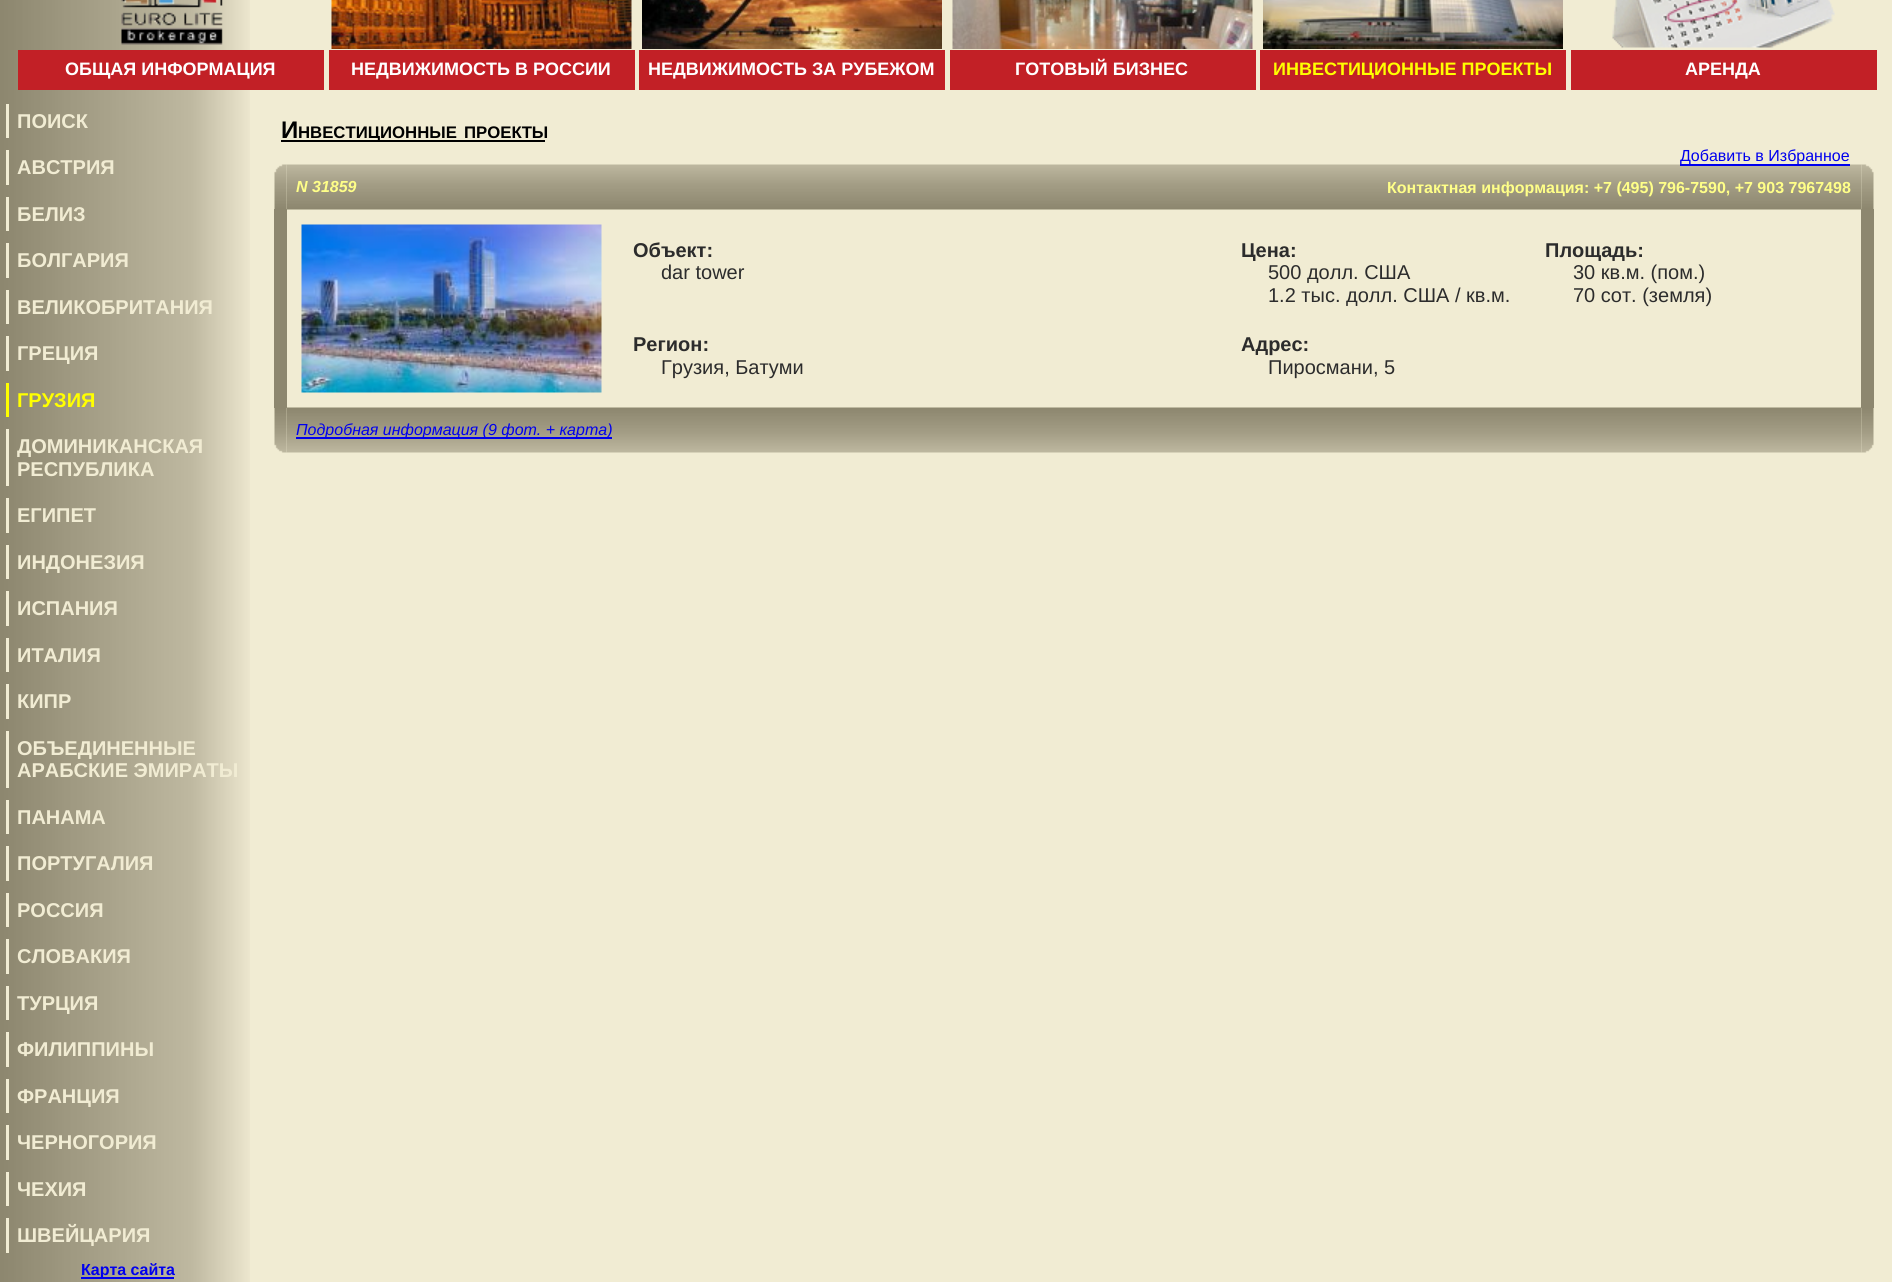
import math
import cairo

surface = cairo.ImageSurface(cairo.FORMAT_RGB24, 1892, 1282)
ctx = cairo.Context(surface)
options = cairo.FontOptions()
options.set_hint_metrics(cairo.HINT_METRICS_OFF)
options.set_hint_style(cairo.HINT_STYLE_NONE)
ctx.set_font_options(options)
ctx.set_miter_limit(4)


def picture(path, x, y, w, h):
    ctx.save()
    ctx.set_source_surface(cairo.ImageSurface.create_from_png(path), x, y)
    ctx.rectangle(x, y, w, h)
    ctx.fill()
    ctx.restore()


ctx.set_source_rgb(0.945, 0.922, 0.827)
ctx.paint()
picture("img1.png", 0, 0, 250, 1282)
picture("img2.png", 121, 0, 102, 45)
picture("img3.png", 331, 0, 301, 49)
picture("img4.png", 642, 0, 300, 49)
picture("img5.png", 952, 0, 301, 49)
picture("img6.png", 1263, 0, 300, 49)
picture("img7.png", 1612, 0, 223, 48)
ctx.set_source_rgb(0.761, 0.125, 0.149)
ctx.rectangle(18, 50, 306, 40)
ctx.fill()
ctx.select_font_face("Liberation Sans", cairo.FONT_SLANT_NORMAL, cairo.FONT_WEIGHT_BOLD)
ctx.set_font_size(18)
ctx.set_source_rgb(1, 1, 1)
ctx.move_to(65, 75)
ctx.show_text("ОБЩАЯ ИНФОРМАЦИЯ")
ctx.set_source_rgb(0.761, 0.125, 0.149)
ctx.rectangle(329, 50, 306, 40)
ctx.fill()
ctx.set_source_rgb(1, 1, 1)
ctx.move_to(351, 75)
ctx.show_text("НЕДВИЖИМОСТЬ В РОССИИ")
ctx.set_source_rgb(0.761, 0.125, 0.149)
ctx.rectangle(639, 50, 306, 40)
ctx.fill()
ctx.set_source_rgb(1, 1, 1)
ctx.move_to(648, 75)
ctx.show_text("НЕДВИЖИМОСТЬ ЗА РУБЕЖОМ")
ctx.set_source_rgb(0.761, 0.125, 0.149)
ctx.rectangle(950, 50, 306, 40)
ctx.fill()
ctx.set_source_rgb(1, 1, 1)
ctx.move_to(1015, 75)
ctx.show_text("ГОТОВЫЙ БИЗНЕС")
ctx.set_source_rgb(0.761, 0.125, 0.149)
ctx.rectangle(1260, 50, 306, 40)
ctx.fill()
ctx.set_source_rgb(1, 1, 0)
ctx.move_to(1273, 75)
ctx.show_text("ИНВЕСТИЦИОННЫЕ ПРОЕКТЫ")
ctx.set_source_rgb(0.761, 0.125, 0.149)
ctx.rectangle(1571, 50, 306, 40)
ctx.fill()
ctx.set_source_rgb(1, 1, 1)
ctx.move_to(1685, 75)
ctx.show_text("АРЕНДА")
ctx.set_source_rgb(0.945, 0.922, 0.827)
ctx.rectangle(6, 104, 3, 34)
ctx.fill()
ctx.set_font_size(20)
ctx.move_to(17, 128)
ctx.show_text("ПОИСК")
ctx.rectangle(6, 150, 3, 35)
ctx.fill()
ctx.move_to(17, 174)
ctx.show_text("АВСТРИЯ")
ctx.rectangle(6, 197, 3, 34)
ctx.fill()
ctx.move_to(17, 221)
ctx.show_text("БЕЛИЗ")
ctx.rectangle(6, 243, 3, 35)
ctx.fill()
ctx.move_to(17, 267)
ctx.show_text("БОЛГАРИЯ")
ctx.rectangle(6, 290, 3, 34)
ctx.fill()
ctx.move_to(17, 314)
ctx.show_text("ВЕЛИКОБРИТАНИЯ")
ctx.rectangle(6, 336, 3, 35)
ctx.fill()
ctx.move_to(17, 360)
ctx.show_text("ГРЕЦИЯ")
ctx.set_source_rgb(1, 1, 0)
ctx.rectangle(6, 383, 3, 34)
ctx.fill()
ctx.move_to(17, 407)
ctx.show_text("ГРУЗИЯ")
ctx.set_source_rgb(0.945, 0.922, 0.827)
ctx.rectangle(6, 429, 3, 57)
ctx.fill()
ctx.move_to(17, 453)
ctx.show_text("ДОМИНИКАНСКАЯ")
ctx.move_to(17, 476)
ctx.show_text("РЕСПУБЛИКА")
ctx.rectangle(6, 498, 3, 35)
ctx.fill()
ctx.move_to(17, 522)
ctx.show_text("ЕГИПЕТ")
ctx.rectangle(6, 545, 3, 34)
ctx.fill()
ctx.move_to(17, 569)
ctx.show_text("ИНДОНЕЗИЯ")
ctx.rectangle(6, 591, 3, 35)
ctx.fill()
ctx.move_to(17, 615)
ctx.show_text("ИСПАНИЯ")
ctx.rectangle(6, 638, 3, 34)
ctx.fill()
ctx.move_to(17, 662)
ctx.show_text("ИТАЛИЯ")
ctx.rectangle(6, 684, 3, 35)
ctx.fill()
ctx.move_to(17, 708)
ctx.show_text("КИПР")
ctx.rectangle(6, 731, 3, 57)
ctx.fill()
ctx.move_to(17, 755)
ctx.show_text("ОБЪЕДИНЕННЫЕ")
ctx.move_to(17, 777)
ctx.show_text("АРАБСКИЕ ЭМИРАТЫ")
ctx.rectangle(6, 800, 3, 34)
ctx.fill()
ctx.move_to(17, 824)
ctx.show_text("ПАНАМА")
ctx.rectangle(6, 846, 3, 35)
ctx.fill()
ctx.move_to(17, 870)
ctx.show_text("ПОРТУГАЛИЯ")
ctx.rectangle(6, 893, 3, 34)
ctx.fill()
ctx.move_to(17, 917)
ctx.show_text("РОССИЯ")
ctx.rectangle(6, 939, 3, 35)
ctx.fill()
ctx.move_to(17, 963)
ctx.show_text("СЛОВАКИЯ")
ctx.rectangle(6, 986, 3, 34)
ctx.fill()
ctx.move_to(17, 1010)
ctx.show_text("ТУРЦИЯ")
ctx.rectangle(6, 1032, 3, 35)
ctx.fill()
ctx.move_to(17, 1056)
ctx.show_text("ФИЛИППИНЫ")
ctx.rectangle(6, 1079, 3, 34)
ctx.fill()
ctx.move_to(17, 1103)
ctx.show_text("ФРАНЦИЯ")
ctx.rectangle(6, 1125, 3, 35)
ctx.fill()
ctx.move_to(17, 1149)
ctx.show_text("ЧЕРНОГОРИЯ")
ctx.rectangle(6, 1172, 3, 34)
ctx.fill()
ctx.move_to(17, 1196)
ctx.show_text("ЧЕХИЯ")
ctx.rectangle(6, 1218, 3, 35)
ctx.fill()
ctx.move_to(17, 1242)
ctx.show_text("ШВЕЙЦАРИЯ")
ctx.set_source_rgb(0, 0, 0.933)
ctx.rectangle(81, 1277, 93, 2)
ctx.fill()
ctx.set_font_size(16)
ctx.move_to(81, 1275)
ctx.show_text("Карта сайта")
ctx.set_font_size(24)
ctx.set_source_rgb(0, 0, 0)
ctx.move_to(281, 138)
ctx.show_text("И")
ctx.rectangle(281, 140, 264, 2)
ctx.fill()
ctx.set_font_size(16.75)
ctx.move_to(298, 138)
ctx.show_text("НВЕСТИЦИОННЫЕ")
ctx.move_to(464, 138)
ctx.show_text("ПРОЕКТЫ")
picture("img8.png", 274, 164, 13, 45)
picture("img9.png", 286, 164, 1576, 46)
ctx.set_source_rgb(0, 0, 0.933)
ctx.rectangle(1680, 164, 170, 2)
ctx.fill()
ctx.select_font_face("Liberation Sans")
ctx.set_font_size(16)
ctx.move_to(1680, 161)
ctx.show_text("Добавить в Избранное")
ctx.select_font_face("Liberation Sans", cairo.FONT_SLANT_ITALIC, cairo.FONT_WEIGHT_BOLD)
ctx.set_source_rgb(1, 1, 0.533)
ctx.move_to(296, 192)
ctx.show_text("N 31859")
ctx.select_font_face("Liberation Sans", cairo.FONT_SLANT_NORMAL, cairo.FONT_WEIGHT_BOLD)
ctx.move_to(1387, 193)
ctx.show_text("Контактная информация: +7 (495) 796-7590, +7 903 7967498")
picture("img10.png", 1861, 164, 13, 45)
ctx.set_source_rgb(0.553, 0.529, 0.435)
ctx.rectangle(274, 209, 13, 199)
ctx.fill()
picture("img11.png", 301, 224, 301, 169)
ctx.set_font_size(20)
ctx.set_source_rgb(0.173, 0.173, 0.173)
ctx.move_to(633, 257)
ctx.show_text("Объект:")
ctx.select_font_face("Liberation Sans")
ctx.move_to(661, 279)
ctx.show_text("dar tower")
ctx.select_font_face("Liberation Sans", cairo.FONT_SLANT_NORMAL, cairo.FONT_WEIGHT_BOLD)
ctx.move_to(1241, 257)
ctx.show_text("Цена:")
ctx.select_font_face("Liberation Sans")
ctx.move_to(1268, 279)
ctx.show_text("500 долл. США")
ctx.move_to(1268, 302)
ctx.show_text("1.2 тыс. долл. США / кв.м.")
ctx.select_font_face("Liberation Sans", cairo.FONT_SLANT_NORMAL, cairo.FONT_WEIGHT_BOLD)
ctx.move_to(1545, 257)
ctx.show_text("Площадь:")
ctx.select_font_face("Liberation Sans")
ctx.move_to(1573, 279)
ctx.show_text("30 кв.м. (пом.)")
ctx.move_to(1573, 302)
ctx.show_text("70 сот. (земля)")
ctx.select_font_face("Liberation Sans", cairo.FONT_SLANT_NORMAL, cairo.FONT_WEIGHT_BOLD)
ctx.move_to(633, 351)
ctx.show_text("Регион:")
ctx.select_font_face("Liberation Sans")
ctx.move_to(661, 374)
ctx.show_text("Грузия, Батуми")
ctx.select_font_face("Liberation Sans", cairo.FONT_SLANT_NORMAL, cairo.FONT_WEIGHT_BOLD)
ctx.move_to(1241, 351)
ctx.show_text("Адрес:")
ctx.select_font_face("Liberation Sans")
ctx.move_to(1268, 374)
ctx.show_text("Пиросмани, 5")
ctx.set_source_rgb(0.553, 0.529, 0.435)
ctx.rectangle(1861, 209, 13, 199)
ctx.fill()
picture("img12.png", 274, 408, 13, 45)
picture("img13.png", 286, 407, 1576, 46)
ctx.set_source_rgb(0, 0, 0.933)
ctx.rectangle(296, 437, 316, 2)
ctx.fill()
ctx.select_font_face("Liberation Sans", cairo.FONT_SLANT_ITALIC)
ctx.set_font_size(16)
ctx.move_to(296, 435)
ctx.show_text("Подробная информация (9 фот. + карта)")
picture("img14.png", 1861, 408, 13, 45)
surface.write_to_png("page.png")
